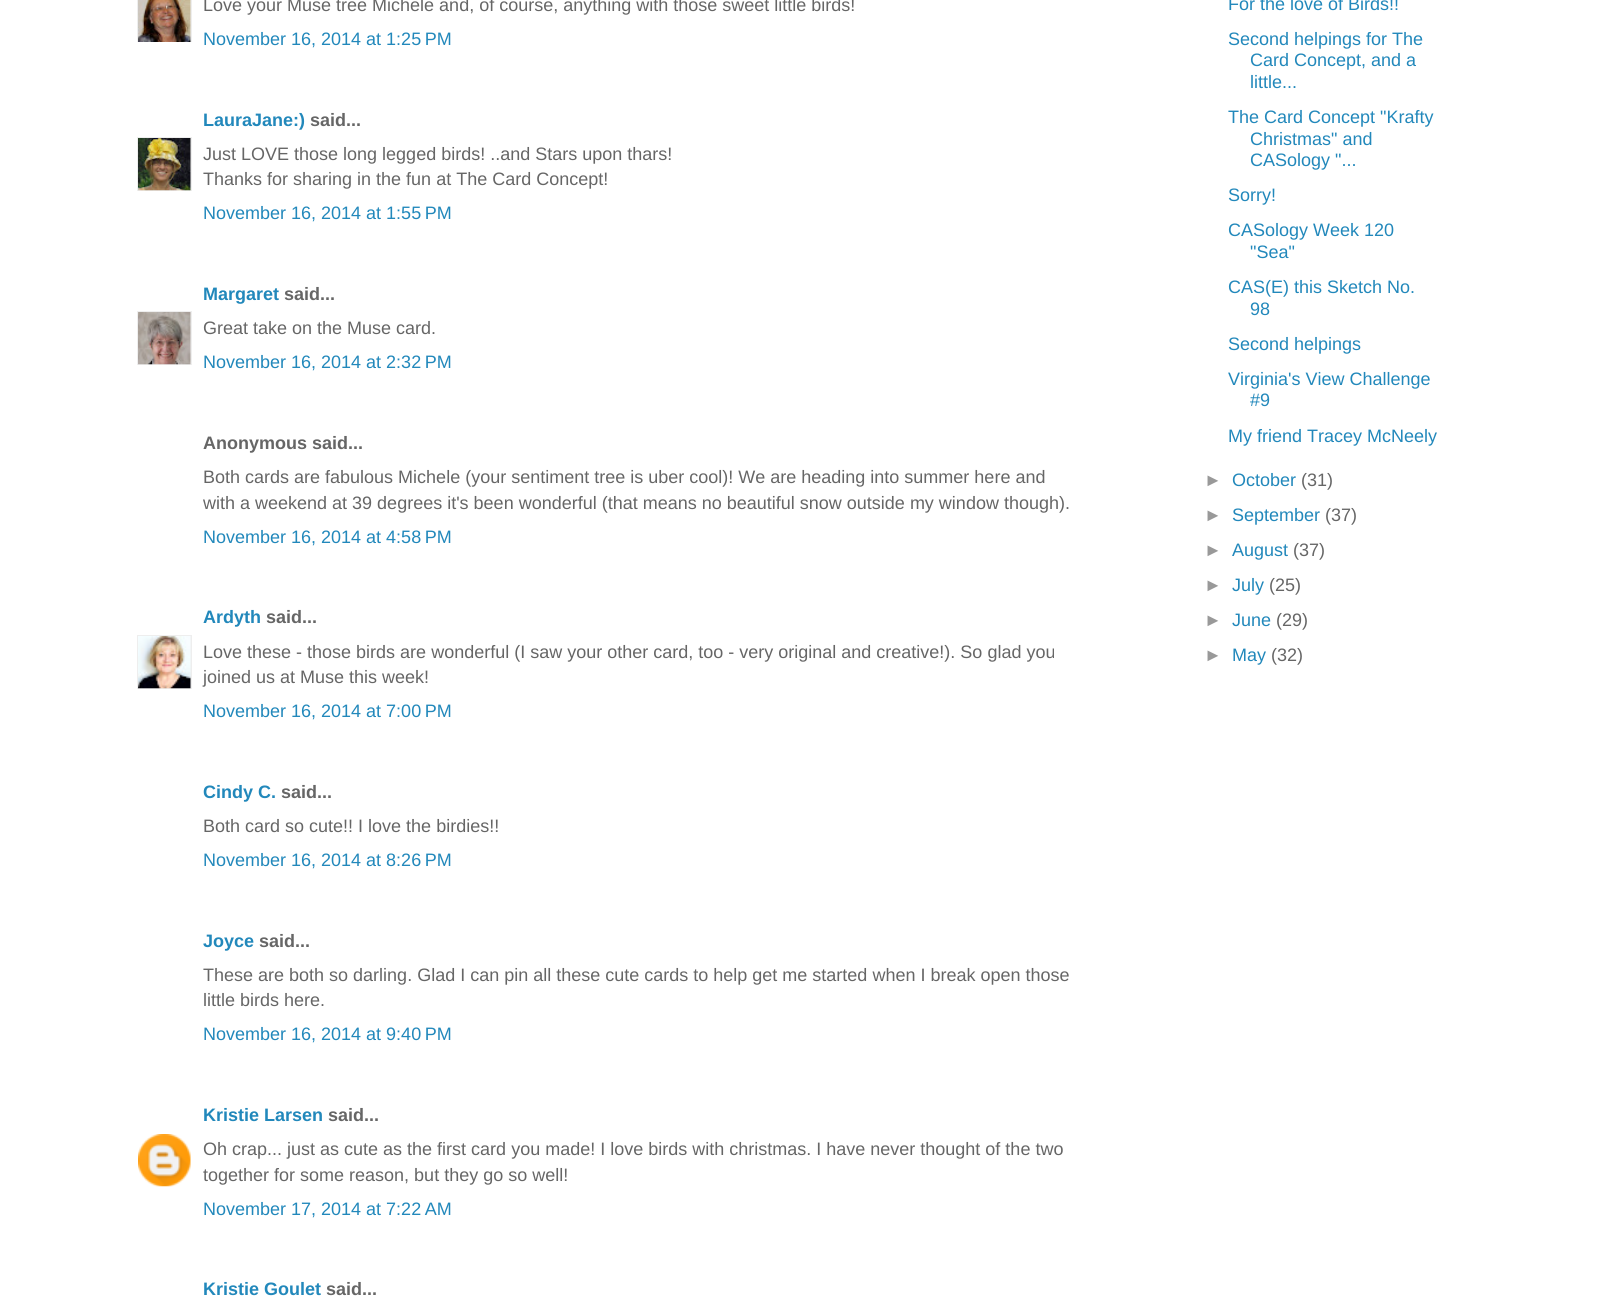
import math
import cairo

surface = cairo.ImageSurface(cairo.FORMAT_RGB24, 1600, 1315)
ctx = cairo.Context(surface)
options = cairo.FontOptions()
options.set_hint_metrics(cairo.HINT_METRICS_OFF)
options.set_hint_style(cairo.HINT_STYLE_NONE)
ctx.set_font_options(options)
ctx.set_miter_limit(4)


def picture(path, x, y, w, h):
    ctx.save()
    ctx.set_source_surface(cairo.ImageSurface.create_from_png(path), x, y)
    ctx.rectangle(x, y, w, h)
    ctx.fill()
    ctx.restore()


ctx.set_source_rgb(1, 1, 1)
ctx.paint()
ctx.save()
ctx.rectangle(137, 0, 55, 42)
ctx.clip()
ctx.rectangle(138, -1, 53, 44)
ctx.set_source_rgb(0.933, 0.933, 0.933)
ctx.stroke()
ctx.restore()
picture("img1.png", 138, 0, 53, 42)
ctx.select_font_face("Liberation Sans")
ctx.set_font_size(18)
ctx.set_source_rgb(0.4, 0.4, 0.4)
ctx.move_to(203, 11)
ctx.show_text("Love your Muse tree Michele and, of course, anything with those sweet little birds!")
ctx.set_source_rgb(0.133, 0.533, 0.733)
ctx.move_to(203, 45)
ctx.show_text("November 16, 2014 at 1:25 PM")
ctx.select_font_face("Liberation Sans", cairo.FONT_SLANT_NORMAL, cairo.FONT_WEIGHT_BOLD)
ctx.move_to(203, 126)
ctx.show_text("LauraJane:)")
ctx.set_source_rgb(0.4, 0.4, 0.4)
ctx.move_to(310, 126)
ctx.show_text("said...")
ctx.save()
ctx.rectangle(137, 137, 55, 54)
ctx.clip()
ctx.rectangle(138, 138, 53, 53)
ctx.set_source_rgb(0.933, 0.933, 0.933)
ctx.stroke()
ctx.restore()
picture("img2.png", 138, 138, 53, 53)
ctx.select_font_face("Liberation Sans")
ctx.move_to(203, 160)
ctx.show_text("Just LOVE those long legged birds! ..and Stars upon thars!")
ctx.move_to(203, 185)
ctx.show_text("Thanks for sharing in the fun at The Card Concept!")
ctx.set_source_rgb(0.133, 0.533, 0.733)
ctx.move_to(203, 219)
ctx.show_text("November 16, 2014 at 1:55 PM")
ctx.select_font_face("Liberation Sans", cairo.FONT_SLANT_NORMAL, cairo.FONT_WEIGHT_BOLD)
ctx.move_to(203, 300)
ctx.show_text("Margaret")
ctx.set_source_rgb(0.4, 0.4, 0.4)
ctx.move_to(284, 300)
ctx.show_text("said...")
ctx.save()
ctx.rectangle(137, 311, 55, 54)
ctx.clip()
ctx.rectangle(138, 312, 53, 53)
ctx.set_source_rgb(0.933, 0.933, 0.933)
ctx.stroke()
ctx.restore()
picture("img3.png", 138, 312, 53, 53)
ctx.select_font_face("Liberation Sans")
ctx.move_to(203, 334)
ctx.show_text("Great take on the Muse card.")
ctx.set_source_rgb(0.133, 0.533, 0.733)
ctx.move_to(203, 368)
ctx.show_text("November 16, 2014 at 2:32 PM")
ctx.select_font_face("Liberation Sans", cairo.FONT_SLANT_NORMAL, cairo.FONT_WEIGHT_BOLD)
ctx.set_source_rgb(0.4, 0.4, 0.4)
ctx.move_to(203, 449)
ctx.show_text("Anonymous said...")
ctx.select_font_face("Liberation Sans")
ctx.move_to(203, 483)
ctx.show_text("Both cards are fabulous Michele (your sentiment tree is uber cool)! We are heading into summer here and")
ctx.move_to(203, 509)
ctx.show_text("with a weekend at 39 degrees it's been wonderful (that means no beautiful snow outside my window though).")
ctx.set_source_rgb(0.133, 0.533, 0.733)
ctx.move_to(203, 543)
ctx.show_text("November 16, 2014 at 4:58 PM")
ctx.select_font_face("Liberation Sans", cairo.FONT_SLANT_NORMAL, cairo.FONT_WEIGHT_BOLD)
ctx.move_to(203, 623)
ctx.show_text("Ardyth")
ctx.set_source_rgb(0.4, 0.4, 0.4)
ctx.move_to(266, 623)
ctx.show_text("said...")
ctx.save()
ctx.rectangle(137, 635, 55, 54)
ctx.clip()
ctx.rectangle(138, 636, 53, 53)
ctx.set_source_rgb(0.933, 0.933, 0.933)
ctx.stroke()
ctx.restore()
picture("img4.png", 138, 636, 53, 53)
ctx.select_font_face("Liberation Sans")
ctx.move_to(203, 658)
ctx.show_text("Love these - those birds are wonderful (I saw your other card, too - very original and creative!). So glad you")
ctx.move_to(203, 683)
ctx.show_text("joined us at Muse this week!")
ctx.set_source_rgb(0.133, 0.533, 0.733)
ctx.move_to(203, 717)
ctx.show_text("November 16, 2014 at 7:00 PM")
ctx.select_font_face("Liberation Sans", cairo.FONT_SLANT_NORMAL, cairo.FONT_WEIGHT_BOLD)
ctx.move_to(203, 798)
ctx.show_text("Cindy C.")
ctx.set_source_rgb(0.4, 0.4, 0.4)
ctx.move_to(281, 798)
ctx.show_text("said...")
ctx.select_font_face("Liberation Sans")
ctx.move_to(203, 832)
ctx.show_text("Both card so cute!! I love the birdies!!")
ctx.set_source_rgb(0.133, 0.533, 0.733)
ctx.move_to(203, 866)
ctx.show_text("November 16, 2014 at 8:26 PM")
ctx.select_font_face("Liberation Sans", cairo.FONT_SLANT_NORMAL, cairo.FONT_WEIGHT_BOLD)
ctx.move_to(203, 947)
ctx.show_text("Joyce")
ctx.set_source_rgb(0.4, 0.4, 0.4)
ctx.move_to(259, 947)
ctx.show_text("said...")
ctx.select_font_face("Liberation Sans")
ctx.move_to(203, 981)
ctx.show_text("These are both so darling. Glad I can pin all these cute cards to help get me started when I break open those")
ctx.move_to(203, 1006)
ctx.show_text("little birds here.")
ctx.set_source_rgb(0.133, 0.533, 0.733)
ctx.move_to(203, 1040)
ctx.show_text("November 16, 2014 at 9:40 PM")
ctx.select_font_face("Liberation Sans", cairo.FONT_SLANT_NORMAL, cairo.FONT_WEIGHT_BOLD)
ctx.move_to(203, 1121)
ctx.show_text("Kristie Larsen")
ctx.set_source_rgb(0.4, 0.4, 0.4)
ctx.move_to(328, 1121)
ctx.show_text("said...")
picture("img5.png", 138, 1134, 53, 53)
ctx.select_font_face("Liberation Sans")
ctx.move_to(203, 1155)
ctx.show_text("Oh crap... just as cute as the first card you made! I love birds with christmas. I have never thought of the two")
ctx.move_to(203, 1181)
ctx.show_text("together for some reason, but they go so well!")
ctx.set_source_rgb(0.133, 0.533, 0.733)
ctx.move_to(203, 1215)
ctx.show_text("November 17, 2014 at 7:22 AM")
ctx.select_font_face("Liberation Sans", cairo.FONT_SLANT_NORMAL, cairo.FONT_WEIGHT_BOLD)
ctx.move_to(203, 1295)
ctx.show_text("Kristie Goulet")
ctx.set_source_rgb(0.4, 0.4, 0.4)
ctx.move_to(326, 1295)
ctx.show_text("said...")
ctx.select_font_face("Liberation Sans")
ctx.set_source_rgb(0.133, 0.533, 0.733)
ctx.move_to(1228, 10)
ctx.show_text("For the love of Birds!!")
ctx.move_to(1228, 45)
ctx.show_text("Second helpings for The")
ctx.move_to(1250, 66)
ctx.show_text("Card Concept, and a")
ctx.move_to(1250, 88)
ctx.show_text("little...")
ctx.move_to(1228, 123)
ctx.show_text("The Card Concept \"Krafty")
ctx.move_to(1250, 145)
ctx.show_text("Christmas\" and")
ctx.move_to(1250, 166)
ctx.show_text("CASology \"...")
ctx.move_to(1228, 201)
ctx.show_text("Sorry!")
ctx.move_to(1228, 236)
ctx.show_text("CASology Week 120")
ctx.move_to(1250, 258)
ctx.show_text("\"Sea\"")
ctx.move_to(1228, 293)
ctx.show_text("CAS(E) this Sketch No.")
ctx.move_to(1250, 315)
ctx.show_text("98")
ctx.move_to(1228, 350)
ctx.show_text("Second helpings")
ctx.move_to(1228, 385)
ctx.show_text("Virginia's View Challenge")
ctx.move_to(1250, 406)
ctx.show_text("#9")
ctx.move_to(1228, 442)
ctx.show_text("My friend Tracey McNeely")
ctx.set_source_rgb(0.6, 0.6, 0.6)
ctx.move_to(1204, 486)
ctx.show_text("►")
ctx.set_source_rgb(0.133, 0.533, 0.733)
ctx.move_to(1232, 486)
ctx.show_text("October")
ctx.set_source_rgb(0.4, 0.4, 0.4)
ctx.move_to(1301, 486)
ctx.show_text("(31)")
ctx.set_source_rgb(0.6, 0.6, 0.6)
ctx.move_to(1204, 521)
ctx.show_text("►")
ctx.set_source_rgb(0.133, 0.533, 0.733)
ctx.move_to(1232, 521)
ctx.show_text("September")
ctx.set_source_rgb(0.4, 0.4, 0.4)
ctx.move_to(1325, 521)
ctx.show_text("(37)")
ctx.set_source_rgb(0.6, 0.6, 0.6)
ctx.move_to(1204, 556)
ctx.show_text("►")
ctx.set_source_rgb(0.133, 0.533, 0.733)
ctx.move_to(1232, 556)
ctx.show_text("August")
ctx.set_source_rgb(0.4, 0.4, 0.4)
ctx.move_to(1293, 556)
ctx.show_text("(37)")
ctx.set_source_rgb(0.6, 0.6, 0.6)
ctx.move_to(1204, 591)
ctx.show_text("►")
ctx.set_source_rgb(0.133, 0.533, 0.733)
ctx.move_to(1232, 591)
ctx.show_text("July")
ctx.set_source_rgb(0.4, 0.4, 0.4)
ctx.move_to(1269, 591)
ctx.show_text("(25)")
ctx.set_source_rgb(0.6, 0.6, 0.6)
ctx.move_to(1204, 626)
ctx.show_text("►")
ctx.set_source_rgb(0.133, 0.533, 0.733)
ctx.move_to(1232, 626)
ctx.show_text("June")
ctx.set_source_rgb(0.4, 0.4, 0.4)
ctx.move_to(1276, 626)
ctx.show_text("(29)")
ctx.set_source_rgb(0.6, 0.6, 0.6)
ctx.move_to(1204, 661)
ctx.show_text("►")
ctx.set_source_rgb(0.133, 0.533, 0.733)
ctx.move_to(1232, 661)
ctx.show_text("May")
ctx.set_source_rgb(0.4, 0.4, 0.4)
ctx.move_to(1271, 661)
ctx.show_text("(32)")
surface.write_to_png("page.png")
